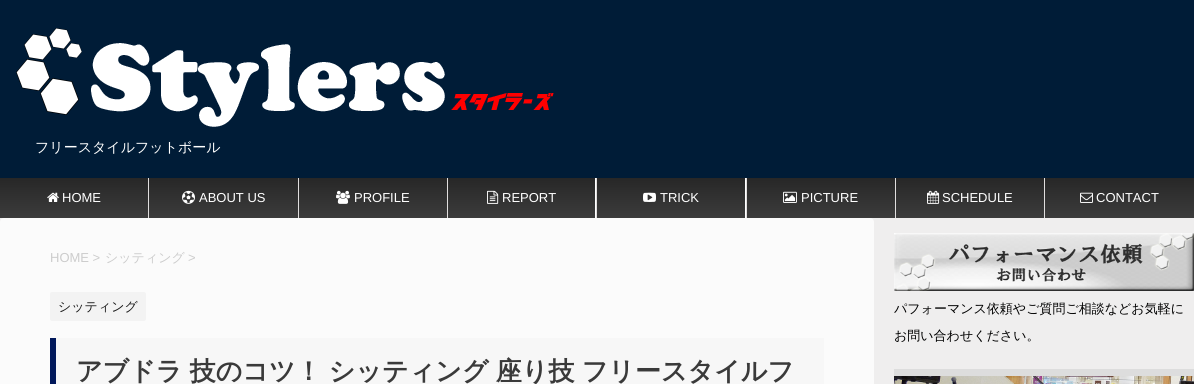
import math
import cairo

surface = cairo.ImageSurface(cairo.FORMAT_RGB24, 1194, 384)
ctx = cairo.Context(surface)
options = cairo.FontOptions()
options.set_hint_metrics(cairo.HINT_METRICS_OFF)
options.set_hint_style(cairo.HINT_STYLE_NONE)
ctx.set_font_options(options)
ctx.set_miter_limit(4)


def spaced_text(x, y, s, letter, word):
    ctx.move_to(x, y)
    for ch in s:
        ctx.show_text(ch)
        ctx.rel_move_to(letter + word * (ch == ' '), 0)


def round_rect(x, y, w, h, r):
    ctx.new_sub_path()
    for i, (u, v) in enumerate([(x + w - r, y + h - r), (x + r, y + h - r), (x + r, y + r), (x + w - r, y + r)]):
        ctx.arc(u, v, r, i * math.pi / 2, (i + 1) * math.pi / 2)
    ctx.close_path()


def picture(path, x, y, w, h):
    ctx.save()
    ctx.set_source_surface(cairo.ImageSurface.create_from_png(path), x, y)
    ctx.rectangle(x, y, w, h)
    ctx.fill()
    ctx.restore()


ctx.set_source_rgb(0.937, 0.933, 0.933)
ctx.paint()
ctx.set_source_rgb(0, 0.11, 0.216)
ctx.rectangle(0, 0, 1194, 178)
ctx.fill()
picture("img1.png", 16, 28, 538, 99)
ctx.select_font_face("WenQuanYi Zen Hei Medium")
ctx.set_font_size(14)
ctx.set_source_rgb(1, 1, 1)
ctx.move_to(35, 152)
ctx.show_text("フリースタイルフットボール")
ctx.set_source_rgb(0.878, 0.871, 0.871)
ctx.rectangle(148, 178, 1, 40)
ctx.fill()
gradient = cairo.LinearGradient(74, 178, 74, 218)
gradient.add_color_stop_rgba(0, 0.153, 0.153, 0.153, 1)
gradient.add_color_stop_rgba(1, 0.235, 0.235, 0.235, 1)
ctx.set_source(gradient)
ctx.rectangle(0, 178, 148, 40)
ctx.fill()
picture("img2.png", 47, 192, 12, 10)
ctx.select_font_face("Liberation Sans")
ctx.set_font_size(13)
ctx.set_source_rgb(1, 1, 1)
ctx.move_to(62, 202)
ctx.show_text("HOME")
ctx.set_source_rgb(0.878, 0.871, 0.871)
ctx.rectangle(298, 178, 1, 40)
ctx.fill()
gradient = cairo.LinearGradient(224, 178, 224, 218)
gradient.add_color_stop_rgba(0, 0.153, 0.153, 0.153, 1)
gradient.add_color_stop_rgba(1, 0.235, 0.235, 0.235, 1)
ctx.set_source(gradient)
ctx.rectangle(149, 178, 149, 40)
ctx.fill()
picture("img3.png", 182, 190, 13, 14)
ctx.set_source_rgb(1, 1, 1)
ctx.move_to(199, 202)
ctx.show_text("ABOUT US")
ctx.set_source_rgb(0.878, 0.871, 0.871)
ctx.rectangle(447, 178, 1, 40)
ctx.fill()
gradient = cairo.LinearGradient(373, 178, 373, 218)
gradient.add_color_stop_rgba(0, 0.153, 0.153, 0.153, 1)
gradient.add_color_stop_rgba(1, 0.235, 0.235, 0.235, 1)
ctx.set_source(gradient)
ctx.rectangle(299, 178, 148, 40)
ctx.fill()
picture("img4.png", 336, 190, 14, 14)
ctx.set_source_rgb(1, 1, 1)
ctx.move_to(354, 202)
ctx.show_text("PROFILE")
ctx.set_source_rgb(0.878, 0.871, 0.871)
ctx.rectangle(596, 178, 1, 40)
ctx.fill()
gradient = cairo.LinearGradient(522, 178, 522, 218)
gradient.add_color_stop_rgba(0, 0.153, 0.153, 0.153, 1)
gradient.add_color_stop_rgba(1, 0.235, 0.235, 0.235, 1)
ctx.set_source(gradient)
ctx.rectangle(448, 178, 147, 40)
ctx.fill()
ctx.set_source_rgb(1, 1, 1)
ctx.rectangle(595, 178, 1, 40)
ctx.fill()
picture("img5.png", 487, 190, 12, 14)
ctx.move_to(502, 202)
ctx.show_text("REPORT")
ctx.set_source_rgb(0.878, 0.871, 0.871)
ctx.rectangle(746, 178, 1, 40)
ctx.fill()
gradient = cairo.LinearGradient(671, 178, 671, 218)
gradient.add_color_stop_rgba(0, 0.153, 0.153, 0.153, 1)
gradient.add_color_stop_rgba(1, 0.235, 0.235, 0.235, 1)
ctx.set_source(gradient)
ctx.rectangle(597, 178, 148, 40)
ctx.fill()
ctx.set_source_rgb(1, 1, 1)
ctx.rectangle(745, 178, 1, 40)
ctx.fill()
picture("img6.png", 643, 192, 13, 10)
ctx.move_to(660, 202)
ctx.show_text("TRICK")
ctx.set_source_rgb(0.878, 0.871, 0.871)
ctx.rectangle(895, 178, 1, 40)
ctx.fill()
gradient = cairo.LinearGradient(821, 178, 821, 218)
gradient.add_color_stop_rgba(0, 0.153, 0.153, 0.153, 1)
gradient.add_color_stop_rgba(1, 0.235, 0.235, 0.235, 1)
ctx.set_source(gradient)
ctx.rectangle(747, 178, 148, 40)
ctx.fill()
picture("img7.png", 783, 191, 14, 12)
ctx.set_source_rgb(1, 1, 1)
ctx.move_to(801, 202)
ctx.show_text("PICTURE")
ctx.set_source_rgb(0.878, 0.871, 0.871)
ctx.rectangle(1044, 178, 1, 40)
ctx.fill()
gradient = cairo.LinearGradient(970, 178, 970, 218)
gradient.add_color_stop_rgba(0, 0.153, 0.153, 0.153, 1)
gradient.add_color_stop_rgba(1, 0.235, 0.235, 0.235, 1)
ctx.set_source(gradient)
ctx.rectangle(896, 178, 148, 40)
ctx.fill()
picture("img8.png", 927, 190, 13, 14)
ctx.set_source_rgb(1, 1, 1)
ctx.move_to(942, 202)
ctx.show_text("SCHEDULE")
gradient = cairo.LinearGradient(1120, 178, 1120, 218)
gradient.add_color_stop_rgba(0, 0.153, 0.153, 0.153, 1)
gradient.add_color_stop_rgba(1, 0.235, 0.235, 0.235, 1)
ctx.set_source(gradient)
ctx.rectangle(1045, 178, 149, 40)
ctx.fill()
picture("img9.png", 1080, 192, 13, 11)
ctx.set_source_rgb(1, 1, 1)
ctx.move_to(1096, 202)
ctx.show_text("CONTACT")
ctx.set_source_rgb(0.984, 0.984, 0.984)
round_rect(0, 218, 874, 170, 4)
ctx.fill()
ctx.set_source_rgb(0.8, 0.8, 0.8)
ctx.move_to(50, 262)
ctx.show_text("HOME >")
ctx.select_font_face("WenQuanYi Zen Hei Medium")
ctx.move_to(105, 262)
ctx.show_text("シッティング")
ctx.select_font_face("Liberation Sans")
ctx.move_to(188, 262)
ctx.show_text(">")
ctx.set_source_rgb(0.953, 0.953, 0.953)
round_rect(50, 292, 96, 29, 2)
ctx.fill()
ctx.select_font_face("WenQuanYi Zen Hei Medium")
ctx.set_source_rgb(0.102, 0.102, 0.102)
ctx.move_to(58, 311)
ctx.show_text("シッティング")
ctx.set_source_rgb(0.965, 0.965, 0.965)
ctx.rectangle(56, 338, 768, 46)
ctx.fill()
ctx.set_source_rgb(0.004, 0.094, 0.357)
ctx.rectangle(50, 338, 6, 46)
ctx.fill()
ctx.select_font_face("WenQuanYi Zen Hei", cairo.FONT_SLANT_NORMAL, cairo.FONT_WEIGHT_BOLD)
ctx.set_font_size(26)
ctx.set_source_rgb(0.227, 0.227, 0.227)
spaced_text(76, 380, "アブドラ 技のコツ！ シッティング 座り技 フリースタイルフ", 0, -0.5)
picture("img10.png", 894, 233, 300, 58)
ctx.select_font_face("WenQuanYi Zen Hei Medium")
ctx.set_font_size(13)
ctx.set_source_rgb(0, 0, 0)
ctx.move_to(894, 313)
ctx.show_text("パフォーマンス依頼やご質問ご相談などお気軽に")
ctx.move_to(894, 340)
ctx.show_text("お問い合わせください。")
ctx.set_source_rgb(0.867, 0.867, 0.867)
ctx.rectangle(894, 369, 300, 7)
ctx.fill()
picture("img11.png", 894, 376, 300, 8)
surface.write_to_png("page.png")
